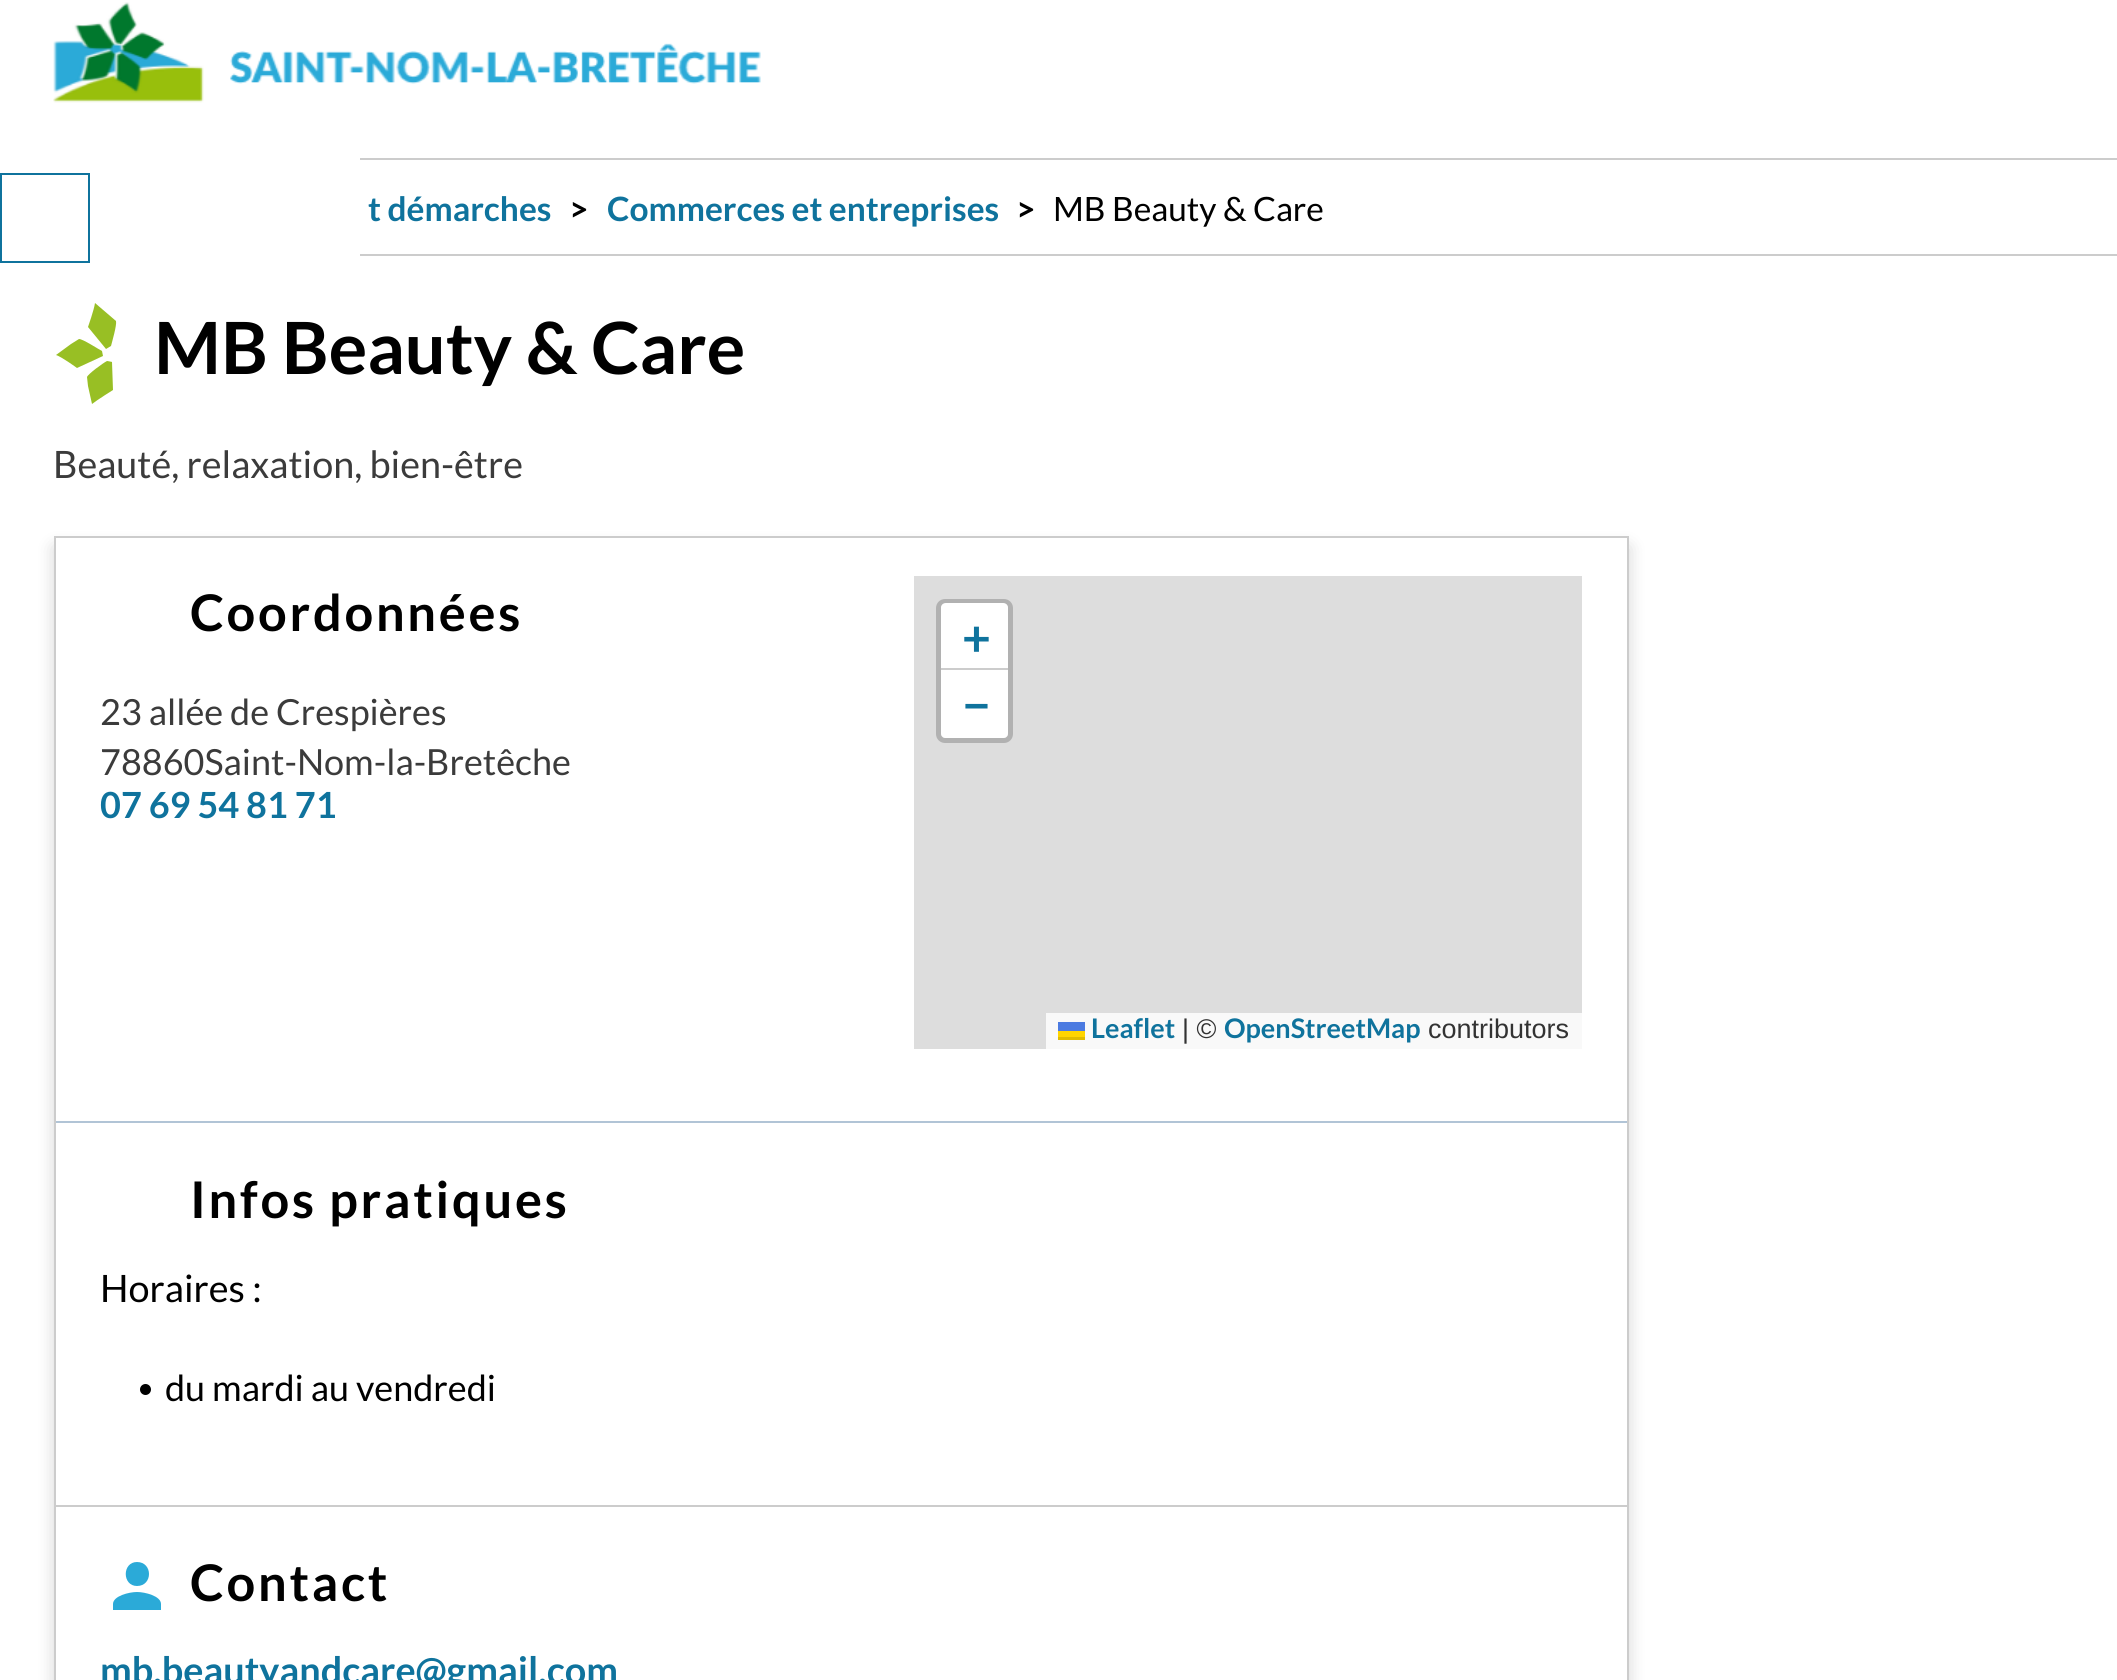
import math
import cairo

surface = cairo.ImageSurface(cairo.FORMAT_RGB24, 2117, 1680)
ctx = cairo.Context(surface)
options = cairo.FontOptions()
options.set_hint_metrics(cairo.HINT_METRICS_OFF)
options.set_hint_style(cairo.HINT_STYLE_NONE)
ctx.set_font_options(options)
ctx.set_miter_limit(4)


def spaced_text(x, y, s, letter, word):
    ctx.move_to(x, y)
    for ch in s:
        ctx.show_text(ch)
        ctx.rel_move_to(letter + word * (ch == ' '), 0)


def round_rect(x, y, w, h, r):
    ctx.new_sub_path()
    for i, (u, v) in enumerate([(x + w - r, y + h - r), (x + r, y + h - r), (x + r, y + r), (x + w - r, y + r)]):
        ctx.arc(u, v, r, i * math.pi / 2, (i + 1) * math.pi / 2)
    ctx.close_path()


def shadow(x, y, w, h, r, blur, alpha):
    ctx.push_group_with_content(cairo.CONTENT_ALPHA)
    ctx.set_operator(cairo.OPERATOR_SOURCE)
    for i in range(15, -16, -2):
        e = blur * i / 6
        if min(w, h) + 2 * e > 0:
            ctx.set_source_rgba(0, 0, 0, alpha * math.erfc((i - 1) / 8.5) / 2)
            round_rect(x - e, y - e, w + 2 * e, h + 2 * e, max(0, min(r + e + blur * .6, min(w, h) / 2 + e)))
            ctx.fill()
    ctx.mask(ctx.pop_group())


def picture(path, x, y, w, h):
    ctx.save()
    ctx.set_source_surface(cairo.ImageSurface.create_from_png(path), x, y)
    ctx.rectangle(x, y, w, h)
    ctx.fill()
    ctx.restore()


ctx.set_source_rgb(1, 1, 1)
ctx.paint()
picture("img1.png", 53, 2, 708, 101)
ctx.rectangle(1, 174, 88, 88)
ctx.set_source_rgb(0.059, 0.451, 0.616)
ctx.stroke()
ctx.set_source_rgb(0.8, 0.8, 0.8)
ctx.rectangle(360, 158, 1757, 2)
ctx.fill()
ctx.rectangle(360, 254, 1757, 2)
ctx.fill()
ctx.select_font_face("Lato", cairo.FONT_SLANT_NORMAL, cairo.FONT_WEIGHT_BOLD)
ctx.set_font_size(33.5)
ctx.set_source_rgb(0.059, 0.451, 0.616)
ctx.move_to(368, 221)
ctx.show_text("t démarches")
ctx.set_source_rgb(0, 0, 0)
ctx.move_to(569, 221)
ctx.show_text(">")
ctx.set_source_rgb(0.059, 0.451, 0.616)
ctx.move_to(607, 221)
ctx.show_text("Commerces et entreprises")
ctx.set_source_rgb(0, 0, 0)
ctx.move_to(1016, 221)
ctx.show_text(">")
ctx.select_font_face("Lato")
ctx.move_to(1053, 221)
ctx.show_text("MB Beauty & Care")
ctx.set_source_rgb(0.596, 0.749, 0.141)
ctx.new_path()
ctx.move_to(111, 346)
ctx.curve_to(112, 342, 117, 325, 116, 321)
ctx.line_to(109, 315)
ctx.line_to(95, 303)
ctx.curve_to(94, 310, 88, 327, 88, 327)
ctx.line_to(106, 349)
ctx.close_path()
ctx.fill()
ctx.new_path()
ctx.move_to(102, 351)
ctx.curve_to(98, 349, 83, 339, 79, 339)
ctx.line_to(71, 344)
ctx.line_to(56, 355)
ctx.curve_to(62, 357, 77, 368, 77, 368)
ctx.line_to(103, 356)
ctx.close_path()
ctx.fill()
ctx.new_path()
ctx.move_to(107, 361)
ctx.curve_to(103, 363, 88, 374, 87, 377)
ctx.line_to(88, 386)
ctx.line_to(92, 404)
ctx.curve_to(97, 400, 113, 390, 113, 390)
ctx.line_to(112, 362)
ctx.close_path()
ctx.fill()
ctx.select_font_face("Lato", cairo.FONT_SLANT_NORMAL, cairo.FONT_WEIGHT_BOLD)
ctx.set_font_size(72)
ctx.set_source_rgb(0, 0, 0)
ctx.move_to(154, 374)
ctx.show_text("MB Beauty & Care")
ctx.select_font_face("Lato")
ctx.set_font_size(37.75)
ctx.set_source_rgb(0.231, 0.231, 0.231)
ctx.move_to(53, 478)
ctx.show_text("Beauté, relaxation, bien-être")
ctx.save()
ctx.set_fill_rule(cairo.FILL_RULE_EVEN_ODD)
ctx.new_path()
ctx.move_to(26, 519)
ctx.line_to(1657, 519)
ctx.line_to(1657, 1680)
ctx.line_to(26, 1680)
ctx.close_path()
ctx.move_to(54, 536)
ctx.line_to(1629, 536)
ctx.line_to(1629, 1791)
ctx.line_to(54, 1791)
ctx.close_path()
ctx.clip()
ctx.set_source_rgb(0, 0, 0)
shadow(54, 547, 1575, 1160, 0, 9, 0.16)
ctx.restore()
ctx.set_source_rgb(0.8, 0.8, 0.8)
ctx.rectangle(54, 536, 1575, 2)
ctx.fill()
ctx.rectangle(1627, 536, 2, 1144)
ctx.fill()
ctx.rectangle(54, 536, 2, 1144)
ctx.fill()
ctx.set_source_rgb(0.694, 0.769, 0.839)
ctx.rectangle(56, 1121, 1571, 2)
ctx.fill()
ctx.select_font_face("Lato", cairo.FONT_SLANT_NORMAL, cairo.FONT_WEIGHT_BOLD)
ctx.set_font_size(50.5)
ctx.set_source_rgb(0, 0, 0)
spaced_text(190, 631, "Coordonnées", 2.75, 0)
ctx.select_font_face("Lato")
ctx.set_font_size(36)
ctx.set_source_rgb(0.231, 0.231, 0.231)
ctx.move_to(100, 725)
ctx.show_text("23 allée de Crespières")
ctx.move_to(100, 775)
ctx.show_text("78860Saint-Nom-la-Bretêche")
ctx.select_font_face("Lato", cairo.FONT_SLANT_NORMAL, cairo.FONT_WEIGHT_BOLD)
ctx.set_source_rgb(0.059, 0.451, 0.616)
ctx.move_to(100, 818)
ctx.show_text("07 69 54 81 71")
ctx.set_source_rgb(0.867, 0.867, 0.867)
ctx.rectangle(914, 576, 668, 473)
ctx.fill()
round_rect(938.5, 601.5, 72, 139, 6.5)
ctx.set_source_rgb(0.694, 0.694, 0.694)
ctx.set_line_width(5)
ctx.stroke()
ctx.set_source_rgb(1, 1, 1)
ctx.new_path()
ctx.move_to(946, 603)
ctx.line_to(1003, 603)
ctx.curve_to(1006, 603, 1008, 605, 1008, 608)
ctx.line_to(1008, 671)
ctx.line_to(941, 671)
ctx.line_to(941, 608)
ctx.curve_to(941, 605, 943, 603, 946, 603)
ctx.close_path()
ctx.fill()
ctx.set_source_rgb(0.8, 0.8, 0.8)
ctx.rectangle(941, 668, 67, 2)
ctx.fill()
ctx.set_font_size(50)
ctx.set_source_rgb(0.059, 0.451, 0.616)
ctx.move_to(962, 656)
ctx.show_text("+")
ctx.set_source_rgb(1, 1, 1)
ctx.new_path()
ctx.move_to(941, 671)
ctx.line_to(1008, 671)
ctx.line_to(1008, 733)
ctx.curve_to(1008, 736, 1006, 738, 1003, 738)
ctx.line_to(946, 738)
ctx.curve_to(943, 738, 941, 736, 941, 733)
ctx.close_path()
ctx.fill()
ctx.set_source_rgb(0.059, 0.451, 0.616)
ctx.move_to(962, 723)
ctx.show_text("−")
ctx.set_source_rgb(0.973, 0.973, 0.973)
ctx.rectangle(1046, 1013, 536, 36)
ctx.fill()
ctx.set_font_size(27)
ctx.set_source_rgb(0.059, 0.451, 0.616)
ctx.move_to(1091, 1038)
ctx.show_text("Leaflet")
ctx.set_source_rgb(0.298, 0.482, 0.882)
ctx.rectangle(1058, 1022, 27, 9)
ctx.fill()
ctx.set_source_rgb(1, 0.835, 0)
ctx.rectangle(1058, 1031, 27, 6)
ctx.fill()
ctx.set_source_rgb(0.878, 0.737, 0)
ctx.rectangle(1058, 1037, 27, 3)
ctx.fill()
ctx.select_font_face("Liberation Sans")
ctx.set_source_rgb(0.2, 0.2, 0.2)
ctx.move_to(1182, 1038)
ctx.show_text("| ©")
ctx.select_font_face("Lato", cairo.FONT_SLANT_NORMAL, cairo.FONT_WEIGHT_BOLD)
ctx.set_source_rgb(0.059, 0.451, 0.616)
ctx.move_to(1224, 1038)
ctx.show_text("OpenStreetMap")
ctx.select_font_face("Liberation Sans")
ctx.set_source_rgb(0.2, 0.2, 0.2)
ctx.move_to(1428, 1038)
ctx.show_text("contributors")
ctx.set_source_rgb(0.8, 0.8, 0.8)
ctx.rectangle(56, 1505, 1571, 2)
ctx.fill()
ctx.select_font_face("Lato", cairo.FONT_SLANT_NORMAL, cairo.FONT_WEIGHT_BOLD)
ctx.set_font_size(50.5)
ctx.set_source_rgb(0, 0, 0)
spaced_text(190, 1218, "Infos pratiques", 2.75, 0)
ctx.select_font_face("Lato")
ctx.set_font_size(37.75)
ctx.move_to(100, 1302)
ctx.show_text("Horaires :")
ctx.new_path()
ctx.arc(145.5, 1389.5, 5.5, 0, 2 * math.pi)
ctx.fill()
ctx.set_font_size(36)
ctx.move_to(165, 1401)
ctx.show_text("du mardi au vendredi")
ctx.set_source_rgb(0.169, 0.667, 0.847)
ctx.new_path()
ctx.move_to(137, 1586)
ctx.curve_to(153, 1586, 153, 1562, 137, 1562)
ctx.curve_to(122, 1562, 122, 1586, 137, 1586)
ctx.close_path()
ctx.move_to(137, 1592)
ctx.curve_to(129, 1592, 113, 1596, 113, 1604)
ctx.line_to(113, 1610)
ctx.line_to(161, 1610)
ctx.line_to(161, 1604)
ctx.curve_to(161, 1596, 145, 1592, 137, 1592)
ctx.close_path()
ctx.fill()
ctx.select_font_face("Lato", cairo.FONT_SLANT_NORMAL, cairo.FONT_WEIGHT_BOLD)
ctx.set_font_size(50.5)
ctx.set_source_rgb(0, 0, 0)
spaced_text(190, 1601, "Contact", 2.75, 0)
ctx.set_font_size(37.75)
ctx.set_source_rgb(0.059, 0.451, 0.616)
ctx.move_to(100, 1684)
ctx.show_text("mb.beautyandcare@gmail.com")
surface.write_to_png("page.png")
